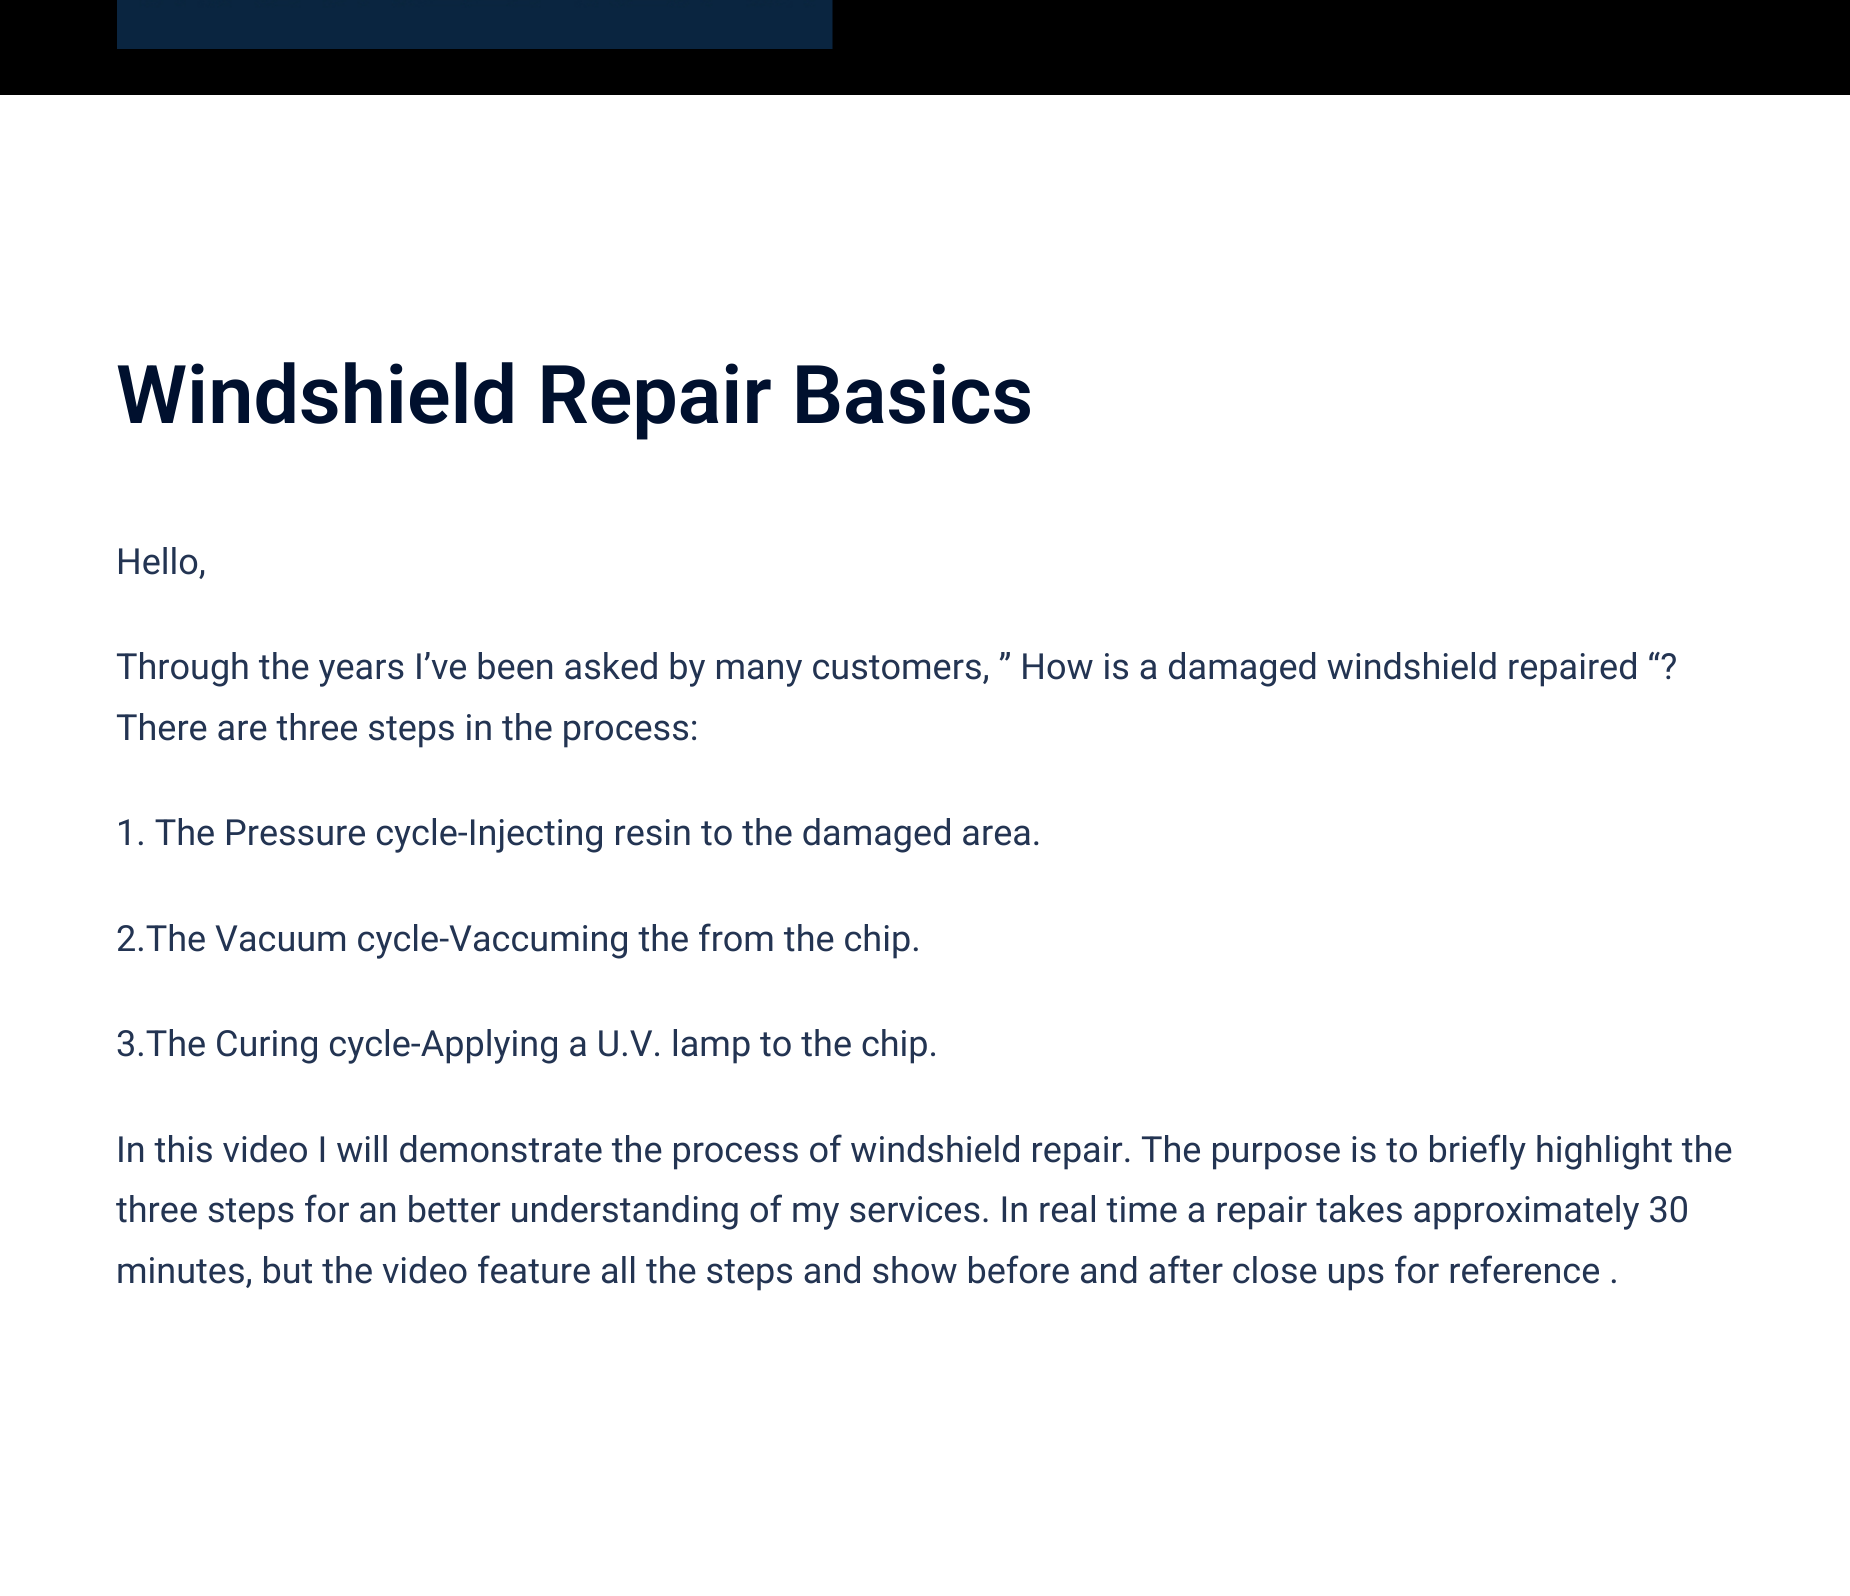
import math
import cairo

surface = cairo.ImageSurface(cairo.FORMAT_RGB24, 1850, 1596)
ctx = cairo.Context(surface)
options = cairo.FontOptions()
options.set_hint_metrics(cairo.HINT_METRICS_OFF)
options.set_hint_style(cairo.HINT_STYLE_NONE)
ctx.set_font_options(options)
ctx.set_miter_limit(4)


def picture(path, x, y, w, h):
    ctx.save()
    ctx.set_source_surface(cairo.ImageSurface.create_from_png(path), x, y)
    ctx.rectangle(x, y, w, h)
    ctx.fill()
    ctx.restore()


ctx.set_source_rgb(1, 1, 1)
ctx.paint()
ctx.set_source_rgb(0, 0, 0)
ctx.rectangle(0, 0, 1850, 95)
ctx.fill()
picture("img1.png", 117, 0, 716, 49)
ctx.select_font_face("Roboto SemiBold")
ctx.set_font_size(81)
ctx.set_source_rgb(0, 0.063, 0.18)
ctx.move_to(116, 423)
ctx.show_text("Windshield Repair Basics")
ctx.select_font_face("Roboto")
ctx.set_font_size(36)
ctx.set_source_rgb(0.137, 0.204, 0.322)
ctx.move_to(116, 574)
ctx.show_text("Hello,")
ctx.move_to(116, 679)
ctx.show_text("Through the years I’ve been asked by many customers, ” How is a damaged windshield repaired “?")
ctx.move_to(116, 740)
ctx.show_text("There are three steps in the process:")
ctx.move_to(116, 845)
ctx.show_text("1. The Pressure cycle-Injecting resin to the damaged area.")
ctx.move_to(116, 951)
ctx.show_text("2.The Vacuum cycle-Vaccuming the from the chip.")
ctx.move_to(116, 1056)
ctx.show_text("3.The Curing cycle-Applying a U.V. lamp to the chip.")
ctx.move_to(116, 1162)
ctx.show_text("In this video I will demonstrate the process of windshield repair. The purpose is to briefly highlight the")
ctx.move_to(116, 1222)
ctx.show_text("three steps for an better understanding of my services. In real time a repair takes approximately 30")
ctx.move_to(116, 1283)
ctx.show_text("minutes, but the video feature all the steps and show before and after close ups for reference .")
surface.write_to_png("page.png")
